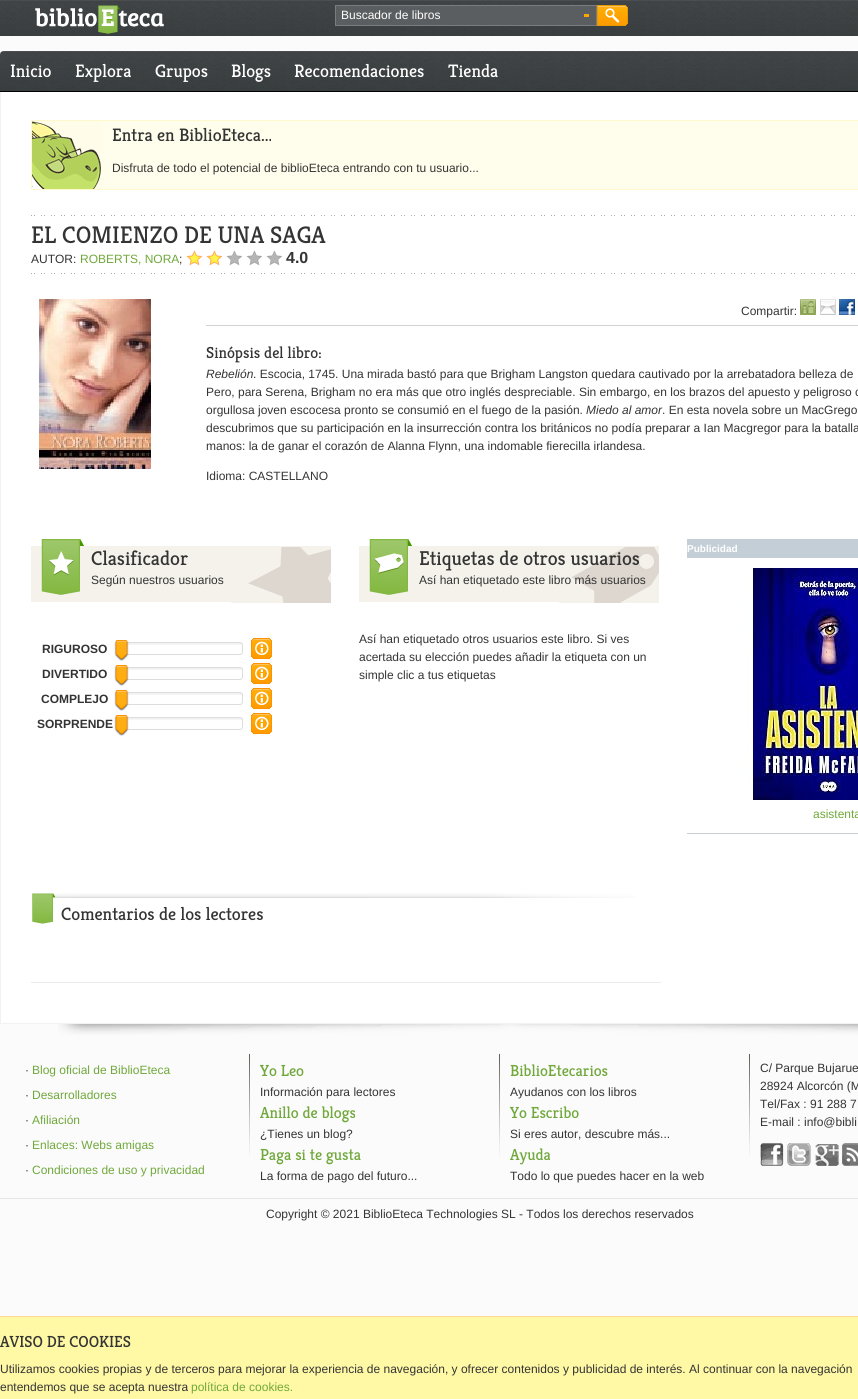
import math
import cairo

surface = cairo.ImageSurface(cairo.FORMAT_RGB24, 858, 1399)
ctx = cairo.Context(surface)
options = cairo.FontOptions()
options.set_hint_metrics(cairo.HINT_METRICS_OFF)
options.set_hint_style(cairo.HINT_STYLE_NONE)
ctx.set_font_options(options)
ctx.set_miter_limit(4)


def round_rect(x, y, w, h, r):
    ctx.new_sub_path()
    for i, (u, v) in enumerate([(x + w - r, y + h - r), (x + r, y + h - r), (x + r, y + r), (x + w - r, y + r)]):
        ctx.arc(u, v, r, i * math.pi / 2, (i + 1) * math.pi / 2)
    ctx.close_path()


def picture(path, x, y, w, h):
    ctx.save()
    ctx.set_source_surface(cairo.ImageSurface.create_from_png(path), x, y)
    ctx.rectangle(x, y, w, h)
    ctx.fill()
    ctx.restore()


ctx.set_source_rgb(0.984, 0.984, 0.984)
ctx.paint()
picture("img1.png", 0, 0, 858, 36)
picture("img2.png", 35, 5, 129, 29)
ctx.set_source_rgb(0.357, 0.369, 0.376)
ctx.rectangle(335.5, 5.5, 261, 20)
ctx.fill_preserve()
ctx.set_source_rgb(0.475, 0.49, 0.498)
ctx.set_line_width(1)
ctx.stroke()
ctx.select_font_face("Liberation Sans")
ctx.set_font_size(12)
ctx.set_source_rgb(1, 1, 1)
ctx.move_to(341, 19)
ctx.show_text("Buscador de libros")
ctx.set_source_rgb(1, 0.647, 0)
ctx.rectangle(584, 14, 5, 3)
ctx.fill()
picture("img3.png", 597, 5, 31, 21)
picture("img4.png", 0, 51, 858, 41)
ctx.select_font_face("Kreon Light")
ctx.set_font_size(18)
ctx.set_source_rgb(1, 1, 1)
ctx.move_to(10, 77)
ctx.show_text("Inicio")
ctx.move_to(75, 77)
ctx.show_text("Explora")
ctx.move_to(155, 77)
ctx.show_text("Grupos")
ctx.move_to(231, 77)
ctx.show_text("Blogs")
ctx.move_to(294, 77)
ctx.show_text("Recomendaciones")
ctx.move_to(448, 77)
ctx.show_text("Tienda")
ctx.rectangle(1, 92, 857, 931)
ctx.fill()
ctx.set_source_rgb(0.949, 0.949, 0.949)
ctx.rectangle(0, 92, 1, 28)
ctx.fill()
ctx.rectangle(0, 1023, 858, 1)
ctx.fill()
ctx.rectangle(0, 120, 1, 904)
ctx.fill()
ctx.set_source_rgb(1, 0.992, 0.918)
ctx.rectangle(101, 121, 757, 68)
ctx.fill()
picture("img5.png", 32, 121, 69, 68)
ctx.rectangle(31.5, 120.5, 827, 69)
ctx.set_source_rgb(0.992, 0.973, 0.8)
ctx.stroke()
ctx.set_source_rgb(0.204, 0.204, 0.204)
ctx.move_to(112, 141)
ctx.show_text("Entra en BiblioEteca...")
ctx.select_font_face("Liberation Sans")
ctx.set_font_size(12)
ctx.move_to(112, 172)
ctx.show_text("Disfruta de todo el potencial de biblioEteca entrando con tu usuario...")
picture("img6.png", 31, 215, 824, 1)
ctx.select_font_face("Kreon Light")
ctx.set_font_size(24)
ctx.move_to(31, 243)
ctx.show_text("EL COMIENZO DE UNA SAGA")
ctx.select_font_face("Liberation Sans")
ctx.set_font_size(12)
ctx.move_to(31, 263)
ctx.show_text("AUTOR:")
ctx.set_source_rgb(0.439, 0.659, 0.231)
ctx.move_to(80, 263)
ctx.show_text("ROBERTS, NORA")
ctx.set_source_rgb(0.204, 0.204, 0.204)
ctx.move_to(179, 263)
ctx.show_text(";")
picture("img7.png", 186, 250, 97, 16)
ctx.select_font_face("Liberation Sans", cairo.FONT_SLANT_NORMAL, cairo.FONT_WEIGHT_BOLD)
ctx.set_font_size(16)
ctx.move_to(286, 263)
ctx.show_text("4.0")
picture("img6.png", 31, 273, 824, 1)
picture("img8.png", 39, 299, 112, 170)
ctx.set_source_rgb(0.827, 0.827, 0.827)
ctx.rectangle(206, 325, 652, 1)
ctx.fill()
ctx.select_font_face("Liberation Sans")
ctx.set_font_size(12)
ctx.set_source_rgb(0.204, 0.204, 0.204)
ctx.move_to(741, 315)
ctx.show_text("Compartir:")
picture("img9.png", 800, 299, 16, 16)
picture("img10.png", 820, 299, 16, 16)
picture("img11.png", 839, 299, 16, 16)
ctx.select_font_face("Kreon Light")
ctx.set_font_size(16)
ctx.move_to(206, 358)
ctx.show_text("Sinópsis del libro:")
ctx.select_font_face("Liberation Sans", cairo.FONT_SLANT_ITALIC)
ctx.set_font_size(12)
ctx.move_to(206, 378)
ctx.show_text("Rebelión")
ctx.select_font_face("Liberation Sans")
ctx.move_to(253, 378)
ctx.show_text(". Escocia, 1745. Una mirada bastó para que Brigham Langston quedara cautivado por la arrebatadora belleza de")
ctx.move_to(206, 396)
ctx.show_text("Pero, para Serena, Brigham no era más que otro inglés despreciable. Sin embargo, en los brazos del apuesto y peligroso c")
ctx.move_to(206, 414)
ctx.show_text("orgullosa joven escocesa pronto se consumió en el fuego de la pasión.")
ctx.select_font_face("Liberation Sans", cairo.FONT_SLANT_ITALIC)
ctx.move_to(586, 414)
ctx.show_text("Miedo al amor")
ctx.select_font_face("Liberation Sans")
ctx.move_to(662, 414)
ctx.show_text(". En esta novela sobre un MacGrego")
ctx.move_to(206, 432)
ctx.show_text("descubrimos que su participación en la insurrección contra los británicos no podía preparar a Ian Macgregor para la batalla")
ctx.move_to(206, 450)
ctx.show_text("manos: la de ganar el corazón de Alanna Flynn, una indomable fierecilla irlandesa.")
ctx.move_to(206, 480)
ctx.show_text("Idioma: CASTELLANO")
picture("img12.png", 31, 539, 300, 63)
picture("img13.png", 49, 551, 25, 25)
picture("img14.png", 231, 547, 100, 56)
ctx.select_font_face("Kreon Light")
ctx.set_font_size(20)
ctx.move_to(91, 565)
ctx.show_text("Clasificador")
ctx.select_font_face("Liberation Sans")
ctx.set_font_size(12)
ctx.move_to(91, 584)
ctx.show_text("Según nuestros usuarios")
ctx.select_font_face("Liberation Sans", cairo.FONT_SLANT_NORMAL, cairo.FONT_WEIGHT_BOLD)
ctx.move_to(42, 653)
ctx.show_text("RIGUROSO")
picture("img15.png", 127, 643, 116, 2)
round_rect(121.5, 642.5, 121, 12, 2.5)
ctx.set_source_rgb(0.867, 0.867, 0.867)
ctx.stroke()
picture("img16.png", 114, 640, 15, 21)
picture("img17.png", 251, 638, 21, 21)
ctx.set_source_rgb(0.204, 0.204, 0.204)
ctx.move_to(42, 678)
ctx.show_text("DIVERTIDO")
picture("img15.png", 127, 668, 116, 2)
round_rect(121.5, 667.5, 121, 12, 2.5)
ctx.set_source_rgb(0.867, 0.867, 0.867)
ctx.stroke()
picture("img16.png", 114, 665, 15, 21)
picture("img17.png", 251, 663, 21, 21)
ctx.set_source_rgb(0.204, 0.204, 0.204)
ctx.move_to(41, 703)
ctx.show_text("COMPLEJO")
picture("img15.png", 127, 693, 116, 2)
round_rect(121.5, 692.5, 121, 12, 2.5)
ctx.set_source_rgb(0.867, 0.867, 0.867)
ctx.stroke()
picture("img16.png", 114, 690, 15, 21)
picture("img17.png", 251, 688, 21, 21)
ctx.set_source_rgb(0.204, 0.204, 0.204)
ctx.move_to(37, 728)
ctx.show_text("SORPRENDE")
picture("img15.png", 127, 718, 116, 2)
round_rect(121.5, 717.5, 121, 12, 2.5)
ctx.set_source_rgb(0.867, 0.867, 0.867)
ctx.stroke()
picture("img16.png", 114, 715, 15, 21)
picture("img17.png", 251, 713, 21, 21)
picture("img12.png", 359, 539, 300, 63)
picture("img18.png", 374, 553, 30, 21)
picture("img19.png", 559, 547, 100, 56)
ctx.select_font_face("Kreon Light")
ctx.set_font_size(20)
ctx.set_source_rgb(0.204, 0.204, 0.204)
ctx.move_to(419, 565)
ctx.show_text("Etiquetas de otros usuarios")
ctx.select_font_face("Liberation Sans")
ctx.set_font_size(12)
ctx.move_to(419, 584)
ctx.show_text("Así han etiquetado este libro más usuarios")
ctx.move_to(359, 643)
ctx.show_text("Así han etiquetado otros usuarios este libro. Si ves")
ctx.move_to(359, 661)
ctx.show_text("acertada su elección puedes añadir la etiqueta con un")
ctx.move_to(359, 679)
ctx.show_text("simple clic a tus etiquetas")
ctx.set_source_rgb(0.769, 0.808, 0.843)
ctx.rectangle(687, 539, 171, 19)
ctx.fill()
ctx.rectangle(687, 833, 171, 1)
ctx.fill()
ctx.select_font_face("Liberation Sans", cairo.FONT_SLANT_NORMAL, cairo.FONT_WEIGHT_BOLD)
ctx.set_font_size(10)
ctx.set_source_rgb(1, 1, 1)
ctx.move_to(687, 552)
ctx.show_text("Publicidad")
picture("img20.png", 745, 568, 113, 232)
ctx.select_font_face("Liberation Sans")
ctx.set_font_size(12)
ctx.set_source_rgb(0.439, 0.659, 0.231)
ctx.move_to(813, 818)
ctx.show_text("asistenta")
picture("img21.png", 32, 893, 603, 31)
ctx.select_font_face("Kreon Light")
ctx.set_font_size(18)
ctx.set_source_rgb(0.204, 0.204, 0.204)
ctx.move_to(61, 920)
ctx.show_text("Comentarios de los lectores")
ctx.set_source_rgb(0.918, 0.918, 0.918)
ctx.rectangle(31, 982, 630, 1)
ctx.fill()
picture("img22.png", 58, 1024, 800, 11)
picture("img23.png", 249, 1054, 1, 103)
ctx.select_font_face("Liberation Sans")
ctx.set_font_size(12)
ctx.set_source_rgb(0.204, 0.204, 0.204)
ctx.move_to(25, 1074)
ctx.show_text("·")
ctx.set_source_rgb(0.439, 0.659, 0.231)
ctx.move_to(32, 1074)
ctx.show_text("Blog oficial de BiblioEteca")
ctx.set_source_rgb(0.204, 0.204, 0.204)
ctx.move_to(25, 1099)
ctx.show_text("·")
ctx.set_source_rgb(0.439, 0.659, 0.231)
ctx.move_to(32, 1099)
ctx.show_text("Desarrolladores")
ctx.set_source_rgb(0.204, 0.204, 0.204)
ctx.move_to(25, 1124)
ctx.show_text("·")
ctx.set_source_rgb(0.439, 0.659, 0.231)
ctx.move_to(32, 1124)
ctx.show_text("Afiliación")
ctx.set_source_rgb(0.204, 0.204, 0.204)
ctx.move_to(25, 1149)
ctx.show_text("·")
ctx.set_source_rgb(0.439, 0.659, 0.231)
ctx.move_to(32, 1149)
ctx.show_text("Enlaces: Webs amigas")
ctx.set_source_rgb(0.204, 0.204, 0.204)
ctx.move_to(25, 1174)
ctx.show_text("·")
ctx.set_source_rgb(0.439, 0.659, 0.231)
ctx.move_to(32, 1174)
ctx.show_text("Condiciones de uso y privacidad")
picture("img23.png", 499, 1054, 1, 103)
ctx.select_font_face("Kreon Light")
ctx.set_font_size(16)
ctx.move_to(260, 1076)
ctx.show_text("Yo Leo")
ctx.select_font_face("Liberation Sans")
ctx.set_font_size(12)
ctx.set_source_rgb(0.204, 0.204, 0.204)
ctx.move_to(260, 1096)
ctx.show_text("Información para lectores")
ctx.select_font_face("Kreon Light")
ctx.set_font_size(16)
ctx.set_source_rgb(0.439, 0.659, 0.231)
ctx.move_to(260, 1118)
ctx.show_text("Anillo de blogs")
ctx.select_font_face("Liberation Sans")
ctx.set_font_size(12)
ctx.set_source_rgb(0.204, 0.204, 0.204)
ctx.move_to(260, 1138)
ctx.show_text("¿Tienes un blog?")
ctx.select_font_face("Kreon Light")
ctx.set_font_size(16)
ctx.set_source_rgb(0.439, 0.659, 0.231)
ctx.move_to(260, 1160)
ctx.show_text("Paga si te gusta")
ctx.select_font_face("Liberation Sans")
ctx.set_font_size(12)
ctx.set_source_rgb(0.204, 0.204, 0.204)
ctx.move_to(260, 1180)
ctx.show_text("La forma de pago del futuro...")
picture("img23.png", 749, 1054, 1, 103)
ctx.select_font_face("Kreon Light")
ctx.set_font_size(16)
ctx.set_source_rgb(0.439, 0.659, 0.231)
ctx.move_to(510, 1076)
ctx.show_text("BiblioEtecarios")
ctx.select_font_face("Liberation Sans")
ctx.set_font_size(12)
ctx.set_source_rgb(0.204, 0.204, 0.204)
ctx.move_to(510, 1096)
ctx.show_text("Ayudanos con los libros")
ctx.select_font_face("Kreon Light")
ctx.set_font_size(16)
ctx.set_source_rgb(0.439, 0.659, 0.231)
ctx.move_to(510, 1118)
ctx.show_text("Yo Escribo")
ctx.select_font_face("Liberation Sans")
ctx.set_font_size(12)
ctx.set_source_rgb(0.204, 0.204, 0.204)
ctx.move_to(510, 1138)
ctx.show_text("Si eres autor, descubre más...")
ctx.select_font_face("Kreon Light")
ctx.set_font_size(16)
ctx.set_source_rgb(0.439, 0.659, 0.231)
ctx.move_to(510, 1160)
ctx.show_text("Ayuda")
ctx.select_font_face("Liberation Sans")
ctx.set_font_size(12)
ctx.set_source_rgb(0.204, 0.204, 0.204)
ctx.move_to(510, 1180)
ctx.show_text("Todo lo que puedes hacer en la web")
ctx.move_to(760, 1072)
ctx.show_text("C/ Parque Bujarue")
ctx.move_to(760, 1090)
ctx.show_text("28924 Alcorcón (M")
ctx.move_to(760, 1108)
ctx.show_text("Tel/Fax : 91 288 7")
ctx.move_to(760, 1126)
ctx.show_text("E-mail : info@bibli")
picture("img24.png", 760, 1143, 24, 23)
picture("img25.png", 787, 1143, 24, 23)
picture("img26.png", 815, 1144, 24, 22)
picture("img27.png", 842, 1143, 16, 23)
ctx.set_source_rgb(0.898, 0.898, 0.894)
ctx.rectangle(0, 1198, 858, 1)
ctx.fill()
ctx.set_source_rgb(0.204, 0.204, 0.204)
ctx.move_to(266, 1218)
ctx.show_text("Copyright © 2021 BiblioEteca Technologies SL - Todos los derechos reservados")
ctx.set_source_rgb(1, 0.969, 0.647)
ctx.rectangle(0, 1317, 858, 82)
ctx.fill()
ctx.set_source_rgb(1, 0.855, 0.588)
ctx.rectangle(0, 1316, 858, 1)
ctx.fill()
ctx.select_font_face("Kreon Light")
ctx.set_font_size(16)
ctx.set_source_rgb(0.204, 0.204, 0.204)
ctx.move_to(0, 1347)
ctx.show_text("AVISO DE COOKIES")
ctx.select_font_face("Liberation Sans")
ctx.set_font_size(12)
ctx.move_to(0, 1373)
ctx.show_text("Utilizamos cookies propias y de terceros para mejorar la experiencia de navegación, y ofrecer contenidos y publicidad de interés. Al continuar con la navegación")
ctx.move_to(0, 1391)
ctx.show_text("entendemos que se acepta nuestra")
ctx.set_source_rgb(0.439, 0.659, 0.231)
ctx.move_to(191, 1391)
ctx.show_text("política de cookies.")
surface.write_to_png("page.png")
